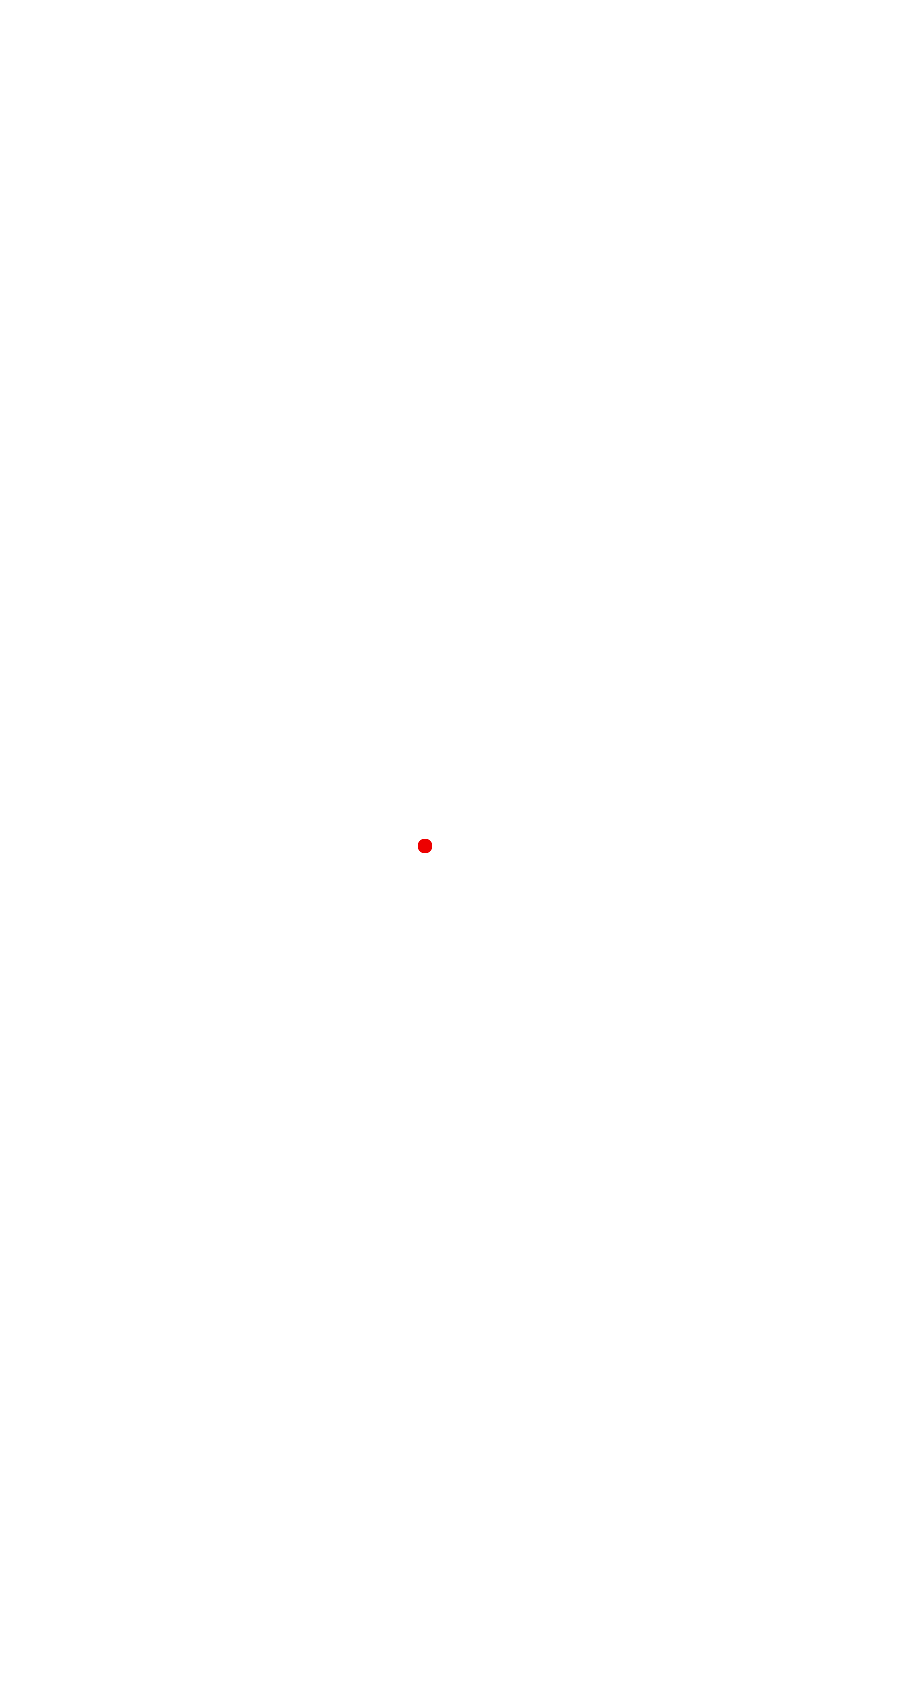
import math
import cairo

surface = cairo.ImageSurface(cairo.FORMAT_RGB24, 908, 1705)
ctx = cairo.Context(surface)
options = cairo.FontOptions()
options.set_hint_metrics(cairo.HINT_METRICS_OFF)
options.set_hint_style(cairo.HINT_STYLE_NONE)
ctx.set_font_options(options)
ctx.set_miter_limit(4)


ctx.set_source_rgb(1, 1, 1)
ctx.paint()
gradient = cairo.RadialGradient(425, 846, 0, 425, 846, 7.5)
gradient.add_color_stop_rgba(0.9, 0.929, 0, 0, 1)
gradient.add_color_stop_rgba(1, 1, 1, 1, 1)
ctx.set_source(gradient)
ctx.rectangle(418, 839, 14, 14)
ctx.fill()
gradient = cairo.RadialGradient(425, 846, 0, 425, 846, 7.5)
gradient.add_color_stop_rgba(0.9, 0.929, 0, 0, 1)
gradient.add_color_stop_rgba(1, 0.929, 0, 0, 0)
ctx.set_source(gradient)
ctx.rectangle(418, 839, 14, 14)
ctx.fill()
ctx.rectangle(418, 839, 14, 14)
ctx.fill()
ctx.rectangle(418, 839, 14, 14)
ctx.fill()
surface.write_to_png("page.png")
